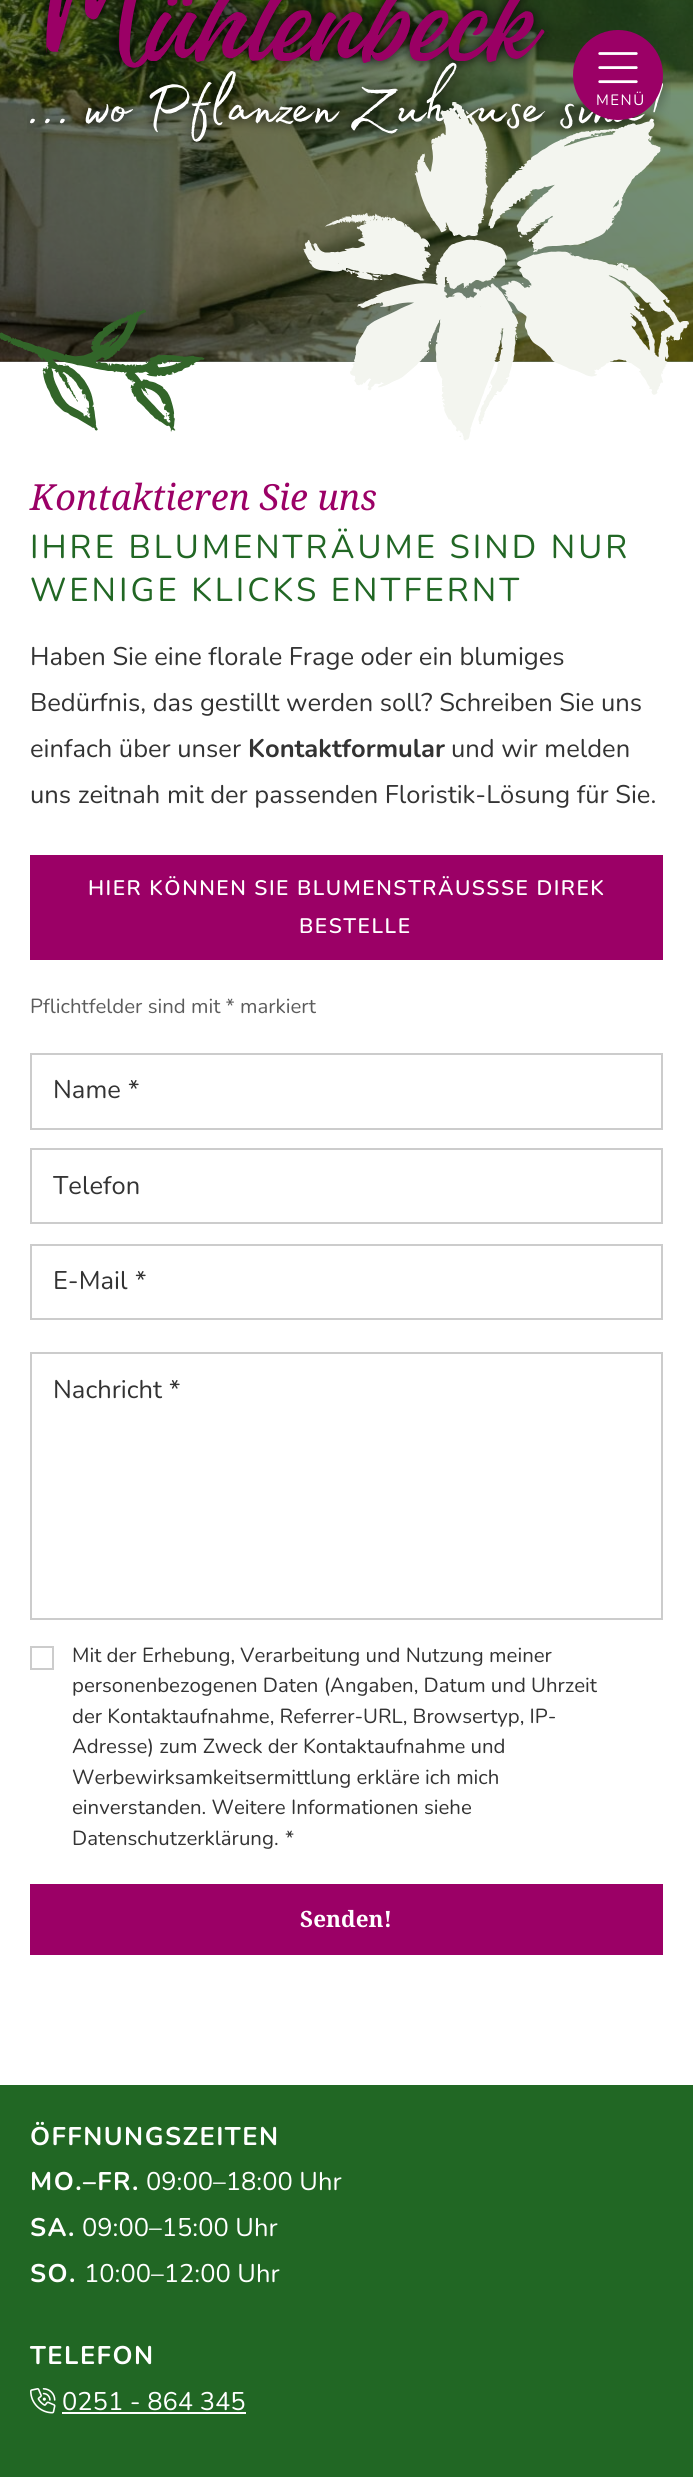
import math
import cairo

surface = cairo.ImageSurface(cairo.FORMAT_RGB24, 693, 2477)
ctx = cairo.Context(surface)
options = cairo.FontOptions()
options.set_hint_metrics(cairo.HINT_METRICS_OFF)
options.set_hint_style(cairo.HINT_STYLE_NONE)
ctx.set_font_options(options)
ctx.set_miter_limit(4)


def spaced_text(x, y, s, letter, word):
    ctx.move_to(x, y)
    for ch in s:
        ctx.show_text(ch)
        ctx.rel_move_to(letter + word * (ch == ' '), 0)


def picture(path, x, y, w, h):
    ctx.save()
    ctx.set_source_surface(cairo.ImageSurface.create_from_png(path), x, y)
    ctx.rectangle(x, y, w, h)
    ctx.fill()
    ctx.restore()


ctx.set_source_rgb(1, 1, 1)
ctx.paint()
picture("img2.png", 0, 0, 693, 362)
gradient = cairo.LinearGradient(12, 374, 681, -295)
gradient.add_color_stop_rgba(0, 0, 0, 0, 0.6)
gradient.add_color_stop_rgba(1, 0.129, 0.404, 0.141, 0.6)
ctx.set_source(gradient)
ctx.rectangle(0, 0, 693, 362)
ctx.fill()
picture("img3.png", 27, 0, 644, 148)
picture("img5.png", 303, 102, 386, 339)
ctx.set_source_rgb(0.608, 0, 0.4)
ctx.arc(618, 75, 45, 0, 2 * math.pi)
ctx.fill()
picture("img1.png", 598, 52, 40, 32)
ctx.select_font_face("Nunito ExtraLight")
ctx.set_font_size(15)
ctx.set_source_rgb(1, 1, 1)
spaced_text(596, 105, "MENÜ", 1.5, 0)
picture("img4.png", 0, 309, 205, 123)
ctx.select_font_face("Noto Serif", cairo.FONT_SLANT_ITALIC)
ctx.set_font_size(36)
ctx.set_source_rgb(0.608, 0, 0.4)
ctx.move_to(30, 510)
ctx.show_text("Kontaktieren Sie uns")
ctx.select_font_face("Nunito ExtraLight")
ctx.set_font_size(33)
ctx.set_source_rgb(0.129, 0.404, 0.141)
spaced_text(30, 558, "IHRE BLUMENTRÄUME SIND NUR", 3, 0)
spaced_text(30, 601, "WENIGE KLICKS ENTFERNT", 3, 0)
ctx.set_font_size(25.5)
ctx.set_source_rgb(0.2, 0.2, 0.2)
ctx.move_to(30, 665)
ctx.show_text("Haben Sie eine florale Frage oder ein blumiges")
ctx.move_to(30, 711)
ctx.show_text("Bedürfnis, das gestillt werden soll? Schreiben Sie uns")
ctx.move_to(30, 757)
ctx.show_text("einfach über unser")
ctx.select_font_face("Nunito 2 ExtraLight")
ctx.move_to(248, 757)
ctx.show_text("Kontaktformular")
ctx.select_font_face("Nunito ExtraLight")
ctx.move_to(451, 757)
ctx.show_text("und wir melden")
ctx.move_to(30, 803)
ctx.show_text("uns zeitnah mit der passenden Floristik-Lösung für Sie.")
ctx.set_source_rgb(0.608, 0, 0.4)
ctx.rectangle(30, 855, 633, 105)
ctx.fill()
ctx.select_font_face("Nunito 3 ExtraLight")
ctx.set_font_size(21)
ctx.set_source_rgb(1, 1, 1)
spaced_text(88, 895, "HIER KÖNNEN SIE BLUMENSTRÄUSSSE DIREK", 1.5, 0)
spaced_text(299, 933, "BESTELLE", 1.5, 0)
ctx.select_font_face("Nunito ExtraLight")
ctx.set_font_size(20.4)
ctx.set_source_rgb(0.361, 0.361, 0.361)
ctx.move_to(30, 1013)
ctx.show_text("Pflichtfelder sind mit * markiert")
ctx.rectangle(31, 1054, 631, 75)
ctx.set_source_rgb(0.8, 0.8, 0.8)
ctx.stroke()
ctx.set_font_size(25.5)
ctx.set_source_rgb(0.2, 0.2, 0.2)
ctx.move_to(53, 1098)
ctx.show_text("Name")
ctx.move_to(128, 1098)
ctx.show_text("*")
ctx.rectangle(31, 1149, 631, 74)
ctx.set_source_rgb(0.8, 0.8, 0.8)
ctx.stroke()
ctx.set_source_rgb(0.2, 0.2, 0.2)
ctx.move_to(53, 1194)
ctx.show_text("Telefon")
ctx.rectangle(31, 1245, 631, 74)
ctx.set_source_rgb(0.8, 0.8, 0.8)
ctx.stroke()
ctx.set_source_rgb(0.2, 0.2, 0.2)
ctx.move_to(53, 1289)
ctx.show_text("E-Mail")
ctx.move_to(135, 1289)
ctx.show_text("*")
ctx.rectangle(31, 1353, 631, 266)
ctx.set_source_rgb(0.8, 0.8, 0.8)
ctx.stroke()
ctx.set_source_rgb(0.2, 0.2, 0.2)
ctx.move_to(53, 1398)
ctx.show_text("Nachricht")
ctx.move_to(169, 1398)
ctx.show_text("*")
ctx.rectangle(31, 1647, 22, 22)
ctx.set_source_rgb(0.8, 0.8, 0.8)
ctx.stroke()
ctx.set_font_size(20.4)
ctx.set_source_rgb(0.2, 0.2, 0.2)
ctx.move_to(72, 1662)
ctx.show_text("Mit der Erhebung, Verarbeitung und Nutzung meiner")
ctx.move_to(72, 1692)
ctx.show_text("personenbezogenen Daten (Angaben, Datum und Uhrzeit")
ctx.move_to(72, 1723)
ctx.show_text("der Kontaktaufnahme, Referrer-URL, Browsertyp, IP-")
ctx.move_to(72, 1753)
ctx.show_text("Adresse) zum Zweck der Kontaktaufnahme und")
ctx.move_to(72, 1784)
ctx.show_text("Werbewirksamkeitsermittlung erkläre ich mich")
ctx.move_to(72, 1814)
ctx.show_text("einverstanden. Weitere Informationen siehe")
ctx.move_to(72, 1845)
ctx.show_text("Datenschutzerklärung.")
ctx.move_to(285, 1845)
ctx.show_text("*")
ctx.set_source_rgb(0.608, 0, 0.4)
ctx.rectangle(30, 1884, 633, 71)
ctx.fill()
ctx.select_font_face("Noto Serif", cairo.FONT_SLANT_NORMAL, cairo.FONT_WEIGHT_BOLD)
ctx.set_font_size(22.5)
ctx.set_source_rgb(1, 1, 1)
ctx.move_to(300, 1927)
ctx.show_text("Senden!")
ctx.set_source_rgb(0.129, 0.404, 0.141)
ctx.rectangle(0, 2085, 693, 392)
ctx.fill()
ctx.select_font_face("Nunito 2 ExtraLight")
ctx.set_font_size(25.5)
ctx.set_source_rgb(1, 1, 1)
spaced_text(30, 2145, "ÖFFNUNGSZEITEN", 1.5, 0)
spaced_text(30, 2190, "MO.–FR.", 1.5, 0)
ctx.select_font_face("Nunito ExtraLight")
ctx.move_to(146, 2190)
ctx.show_text("09:00–18:00 Uhr")
ctx.select_font_face("Nunito 2 ExtraLight")
spaced_text(30, 2236, "SA.", 1.5, 0)
ctx.select_font_face("Nunito ExtraLight")
ctx.move_to(82, 2236)
ctx.show_text("09:00–15:00 Uhr")
ctx.select_font_face("Nunito 2 ExtraLight")
spaced_text(30, 2282, "SO.", 1.5, 0)
ctx.select_font_face("Nunito ExtraLight")
ctx.move_to(84, 2282)
ctx.show_text("10:00–12:00 Uhr")
ctx.select_font_face("Nunito 2 ExtraLight")
spaced_text(30, 2364, "TELEFON", 1.5, 0)
picture("img6.png", 30, 2388, 26, 26)
ctx.select_font_face("Nunito ExtraLight")
ctx.move_to(62, 2410)
ctx.show_text("0251 - 864 345")
ctx.rectangle(62, 2412, 184, 2)
ctx.fill()
surface.write_to_png("page.png")
